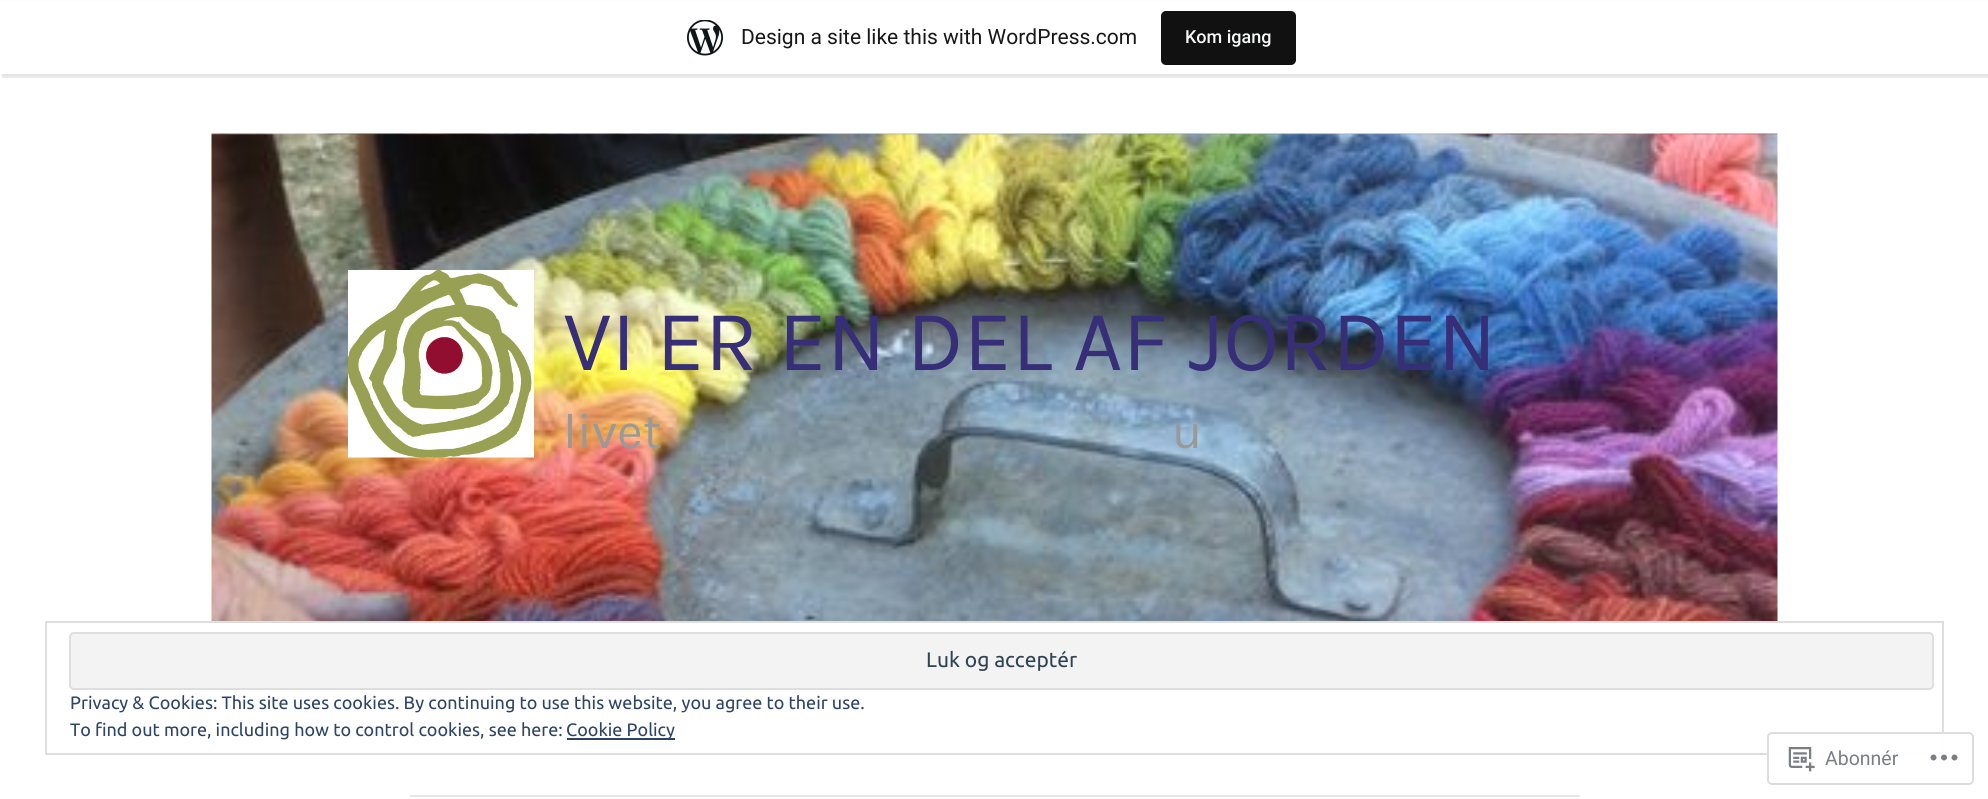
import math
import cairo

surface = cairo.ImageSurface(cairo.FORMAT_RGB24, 1988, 799)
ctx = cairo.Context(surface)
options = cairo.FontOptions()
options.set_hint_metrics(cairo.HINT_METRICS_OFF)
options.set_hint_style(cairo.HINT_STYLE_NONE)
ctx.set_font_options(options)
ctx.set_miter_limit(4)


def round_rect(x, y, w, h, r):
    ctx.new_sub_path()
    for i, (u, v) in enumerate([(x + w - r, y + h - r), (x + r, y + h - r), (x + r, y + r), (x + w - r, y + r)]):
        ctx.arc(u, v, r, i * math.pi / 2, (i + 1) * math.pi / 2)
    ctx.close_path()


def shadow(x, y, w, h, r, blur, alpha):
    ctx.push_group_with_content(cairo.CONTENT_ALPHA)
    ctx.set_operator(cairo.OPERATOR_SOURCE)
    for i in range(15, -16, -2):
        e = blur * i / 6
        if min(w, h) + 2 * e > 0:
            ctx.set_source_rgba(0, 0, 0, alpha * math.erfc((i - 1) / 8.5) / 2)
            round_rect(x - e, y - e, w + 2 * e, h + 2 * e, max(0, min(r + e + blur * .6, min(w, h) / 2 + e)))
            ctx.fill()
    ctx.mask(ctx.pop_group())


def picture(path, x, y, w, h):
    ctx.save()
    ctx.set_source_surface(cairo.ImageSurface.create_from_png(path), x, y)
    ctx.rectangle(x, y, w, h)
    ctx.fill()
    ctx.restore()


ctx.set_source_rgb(1, 1, 1)
ctx.paint()
ctx.set_source_rgb(0, 0, 0)
shadow(0, 2, 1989, 73, 0, 1.5, 0.05)
ctx.set_source_rgba(0, 0, 0, 0.08)
ctx.new_path()
ctx.move_to(2, 74)
ctx.line_to(2, 78)
ctx.line_to(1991, 78)
ctx.line_to(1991, 5)
ctx.line_to(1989, 5)
ctx.line_to(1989, 74)
ctx.close_path()
ctx.fill()
ctx.set_source_rgb(1, 1, 1)
ctx.rectangle(0, 1, 1988, 73)
ctx.fill()
picture("img1.png", 687, 20, 36, 36)
ctx.select_font_face("Roboto")
ctx.set_font_size(21)
ctx.set_source_rgb(0.09, 0.09, 0.09)
ctx.move_to(741, 44)
ctx.show_text("Design a site like this with WordPress.com")
ctx.set_source_rgb(0.067, 0.067, 0.067)
round_rect(1161, 11, 135, 54, 5)
ctx.fill()
ctx.select_font_face("Roboto Medium")
ctx.set_font_size(18)
ctx.set_source_rgb(0.965, 0.969, 0.969)
ctx.move_to(1185, 43)
ctx.show_text("Kom igang")
picture("img2.png", 211, 133, 1567, 488)
picture("img3.png", 348, 270, 186, 188)
ctx.select_font_face("Karla")
ctx.set_font_size(86.4)
ctx.set_source_rgb(0.212, 0.18, 0.467)
ctx.move_to(563, 370)
ctx.show_text("VI ER EN DEL AF JORDEN")
ctx.set_font_size(50)
ctx.set_source_rgb(0.6, 0.6, 0.6)
ctx.move_to(563, 448)
ctx.show_text("livet")
ctx.move_to(1172, 448)
ctx.show_text("u")
ctx.rectangle(46, 622, 1897, 132)
ctx.set_source_rgb(0.871, 0.871, 0.871)
ctx.stroke()
ctx.set_source_rgb(0.953, 0.953, 0.953)
round_rect(70, 633, 1863, 56, 4)
ctx.fill_preserve()
ctx.set_source_rgb(0.871, 0.871, 0.871)
ctx.stroke()
ctx.select_font_face("Ubuntu")
ctx.set_font_size(21)
ctx.set_source_rgb(0.18, 0.267, 0.325)
ctx.move_to(926, 667)
ctx.show_text("Luk og acceptér")
ctx.set_font_size(18)
ctx.set_source_rgb(0.18, 0.267, 0.404)
ctx.move_to(70, 709)
ctx.show_text("Privacy & Cookies: This site uses cookies. By continuing to use this website, you agree to their use.")
ctx.move_to(70, 736)
ctx.show_text("To find out more, including how to control cookies, see here:")
ctx.rectangle(567, 738, 108, 2)
ctx.fill()
ctx.move_to(566, 736)
ctx.show_text("Cookie Policy")
ctx.set_source_rgba(1, 1, 1, 0.98)
round_rect(1768, 733, 205, 51, 4)
ctx.fill_preserve()
ctx.set_source_rgb(0.867, 0.867, 0.875)
ctx.stroke()
picture("img4.png", 1788, 747, 27, 25)
ctx.select_font_face("Roboto")
ctx.set_font_size(19.5)
ctx.set_source_rgb(0.482, 0.498, 0.518)
ctx.move_to(1825, 765)
ctx.show_text("Abonnér")
picture("img5.png", 1930, 754, 28, 7)
ctx.set_source_rgb(0.902, 0.902, 0.902)
ctx.rectangle(410, 795, 1170, 2)
ctx.fill()
surface.write_to_png("page.png")
